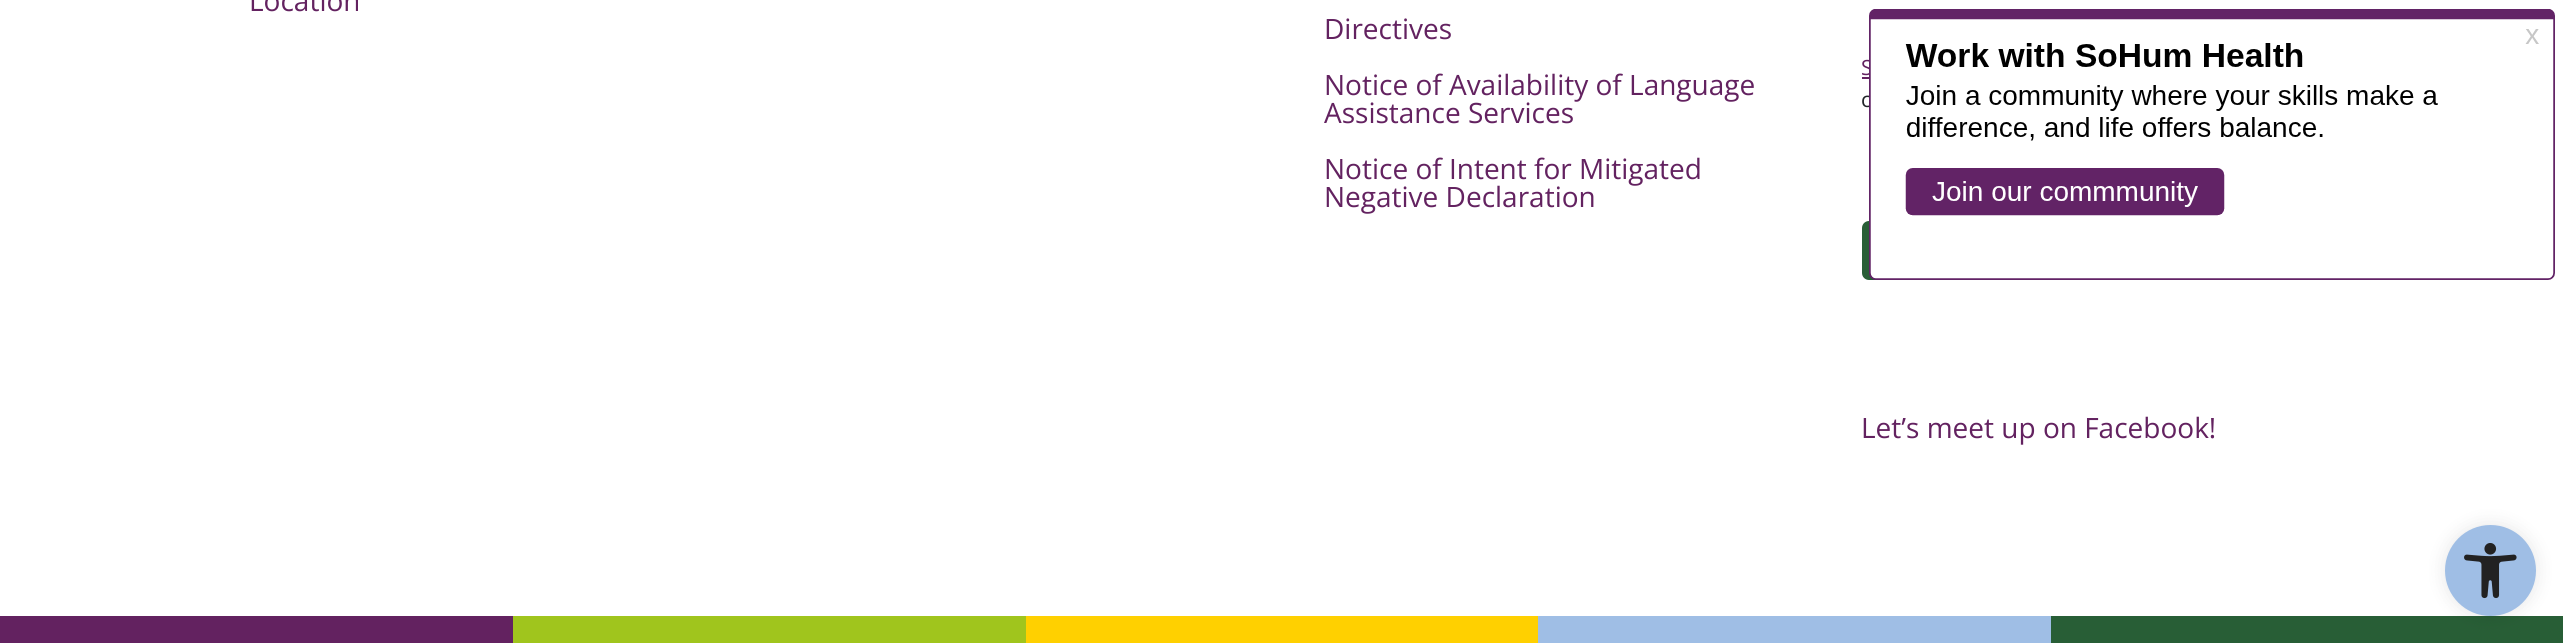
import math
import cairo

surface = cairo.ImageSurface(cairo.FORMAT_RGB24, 2563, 643)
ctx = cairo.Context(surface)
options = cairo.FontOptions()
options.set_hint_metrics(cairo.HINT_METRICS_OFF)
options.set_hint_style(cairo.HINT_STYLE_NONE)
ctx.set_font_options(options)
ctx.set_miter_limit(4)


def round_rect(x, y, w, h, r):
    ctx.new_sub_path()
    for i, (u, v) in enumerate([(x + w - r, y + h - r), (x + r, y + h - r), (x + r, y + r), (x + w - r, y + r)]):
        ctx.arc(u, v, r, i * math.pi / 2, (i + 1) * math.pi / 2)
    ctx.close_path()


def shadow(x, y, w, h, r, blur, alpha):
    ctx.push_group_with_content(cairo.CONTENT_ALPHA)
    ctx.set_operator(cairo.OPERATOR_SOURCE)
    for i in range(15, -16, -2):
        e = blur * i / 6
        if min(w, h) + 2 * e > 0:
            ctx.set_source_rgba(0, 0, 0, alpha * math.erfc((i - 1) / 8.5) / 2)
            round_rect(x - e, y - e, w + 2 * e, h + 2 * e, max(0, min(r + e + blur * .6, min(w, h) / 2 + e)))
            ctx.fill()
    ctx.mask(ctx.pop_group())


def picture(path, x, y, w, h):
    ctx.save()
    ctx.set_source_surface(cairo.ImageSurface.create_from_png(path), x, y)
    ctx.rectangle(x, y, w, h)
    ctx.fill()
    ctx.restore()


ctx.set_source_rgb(1, 1, 1)
ctx.paint()
ctx.set_source_rgb(0.388, 0.133, 0.376)
ctx.rectangle(0, 616, 513, 27)
ctx.fill()
ctx.set_source_rgb(0.627, 0.773, 0.114)
ctx.rectangle(513, 616, 513, 27)
ctx.fill()
ctx.set_source_rgb(1, 0.816, 0)
ctx.rectangle(1026, 616, 512, 27)
ctx.fill()
ctx.set_source_rgb(0.624, 0.745, 0.898)
ctx.rectangle(1538, 616, 513, 27)
ctx.fill()
ctx.set_source_rgb(0.157, 0.369, 0.212)
ctx.rectangle(2051, 616, 512, 27)
ctx.fill()
ctx.select_font_face("Open Sans")
ctx.set_font_size(28)
ctx.set_source_rgb(0.388, 0.133, 0.376)
ctx.move_to(249, 11)
ctx.show_text("Location")
ctx.move_to(1324, 39)
ctx.show_text("Directives")
ctx.move_to(1324, 95)
ctx.show_text("Notice of Availability of Language")
ctx.move_to(1324, 123)
ctx.show_text("Assistance Services")
ctx.move_to(1324, 179)
ctx.show_text("Notice of Intent for Mitigated")
ctx.move_to(1324, 207)
ctx.show_text("Negative Declaration")
ctx.set_font_size(21)
ctx.move_to(1861, 75)
ctx.show_text("S")
ctx.rectangle(1862, 77, 7, 2)
ctx.fill()
ctx.set_source_rgb(0.129, 0.145, 0.161)
ctx.move_to(1861, 107)
ctx.show_text("c")
ctx.set_source_rgb(0.157, 0.369, 0.212)
round_rect(1862, 221, 203, 59, 7)
ctx.fill()
ctx.set_font_size(28)
ctx.set_source_rgb(0.388, 0.133, 0.376)
ctx.move_to(1861, 438)
ctx.show_text("Let’s meet up on Facebook!")
picture("img1.png", 1869, 9, 686, 271)
ctx.set_source_rgb(0, 0, 0)
shadow(2445, 525, 91, 91, 45.5, 9, 0.1)
ctx.set_source_rgb(0.624, 0.745, 0.898)
ctx.arc(2490.5, 570.5, 45.5, 0, 2 * math.pi)
ctx.fill()
picture("img2.png", 2464, 543, 53, 56)
surface.write_to_png("page.png")
